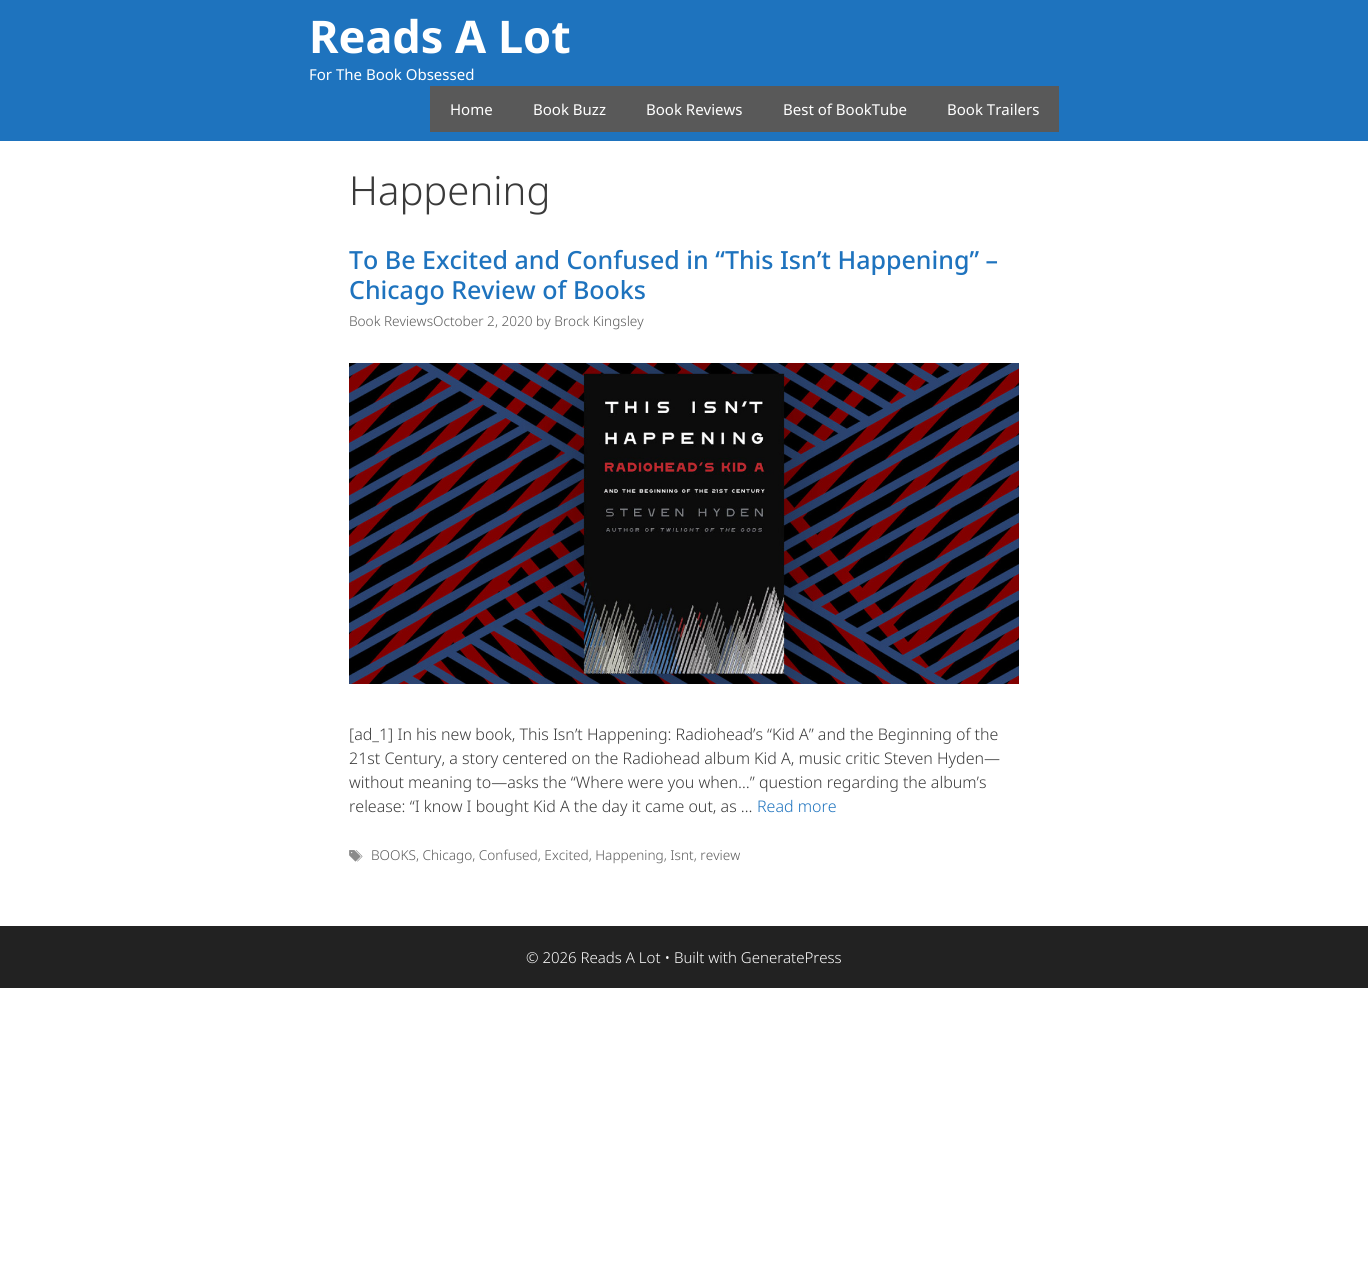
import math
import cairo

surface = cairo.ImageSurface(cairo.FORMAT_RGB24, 1368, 1276)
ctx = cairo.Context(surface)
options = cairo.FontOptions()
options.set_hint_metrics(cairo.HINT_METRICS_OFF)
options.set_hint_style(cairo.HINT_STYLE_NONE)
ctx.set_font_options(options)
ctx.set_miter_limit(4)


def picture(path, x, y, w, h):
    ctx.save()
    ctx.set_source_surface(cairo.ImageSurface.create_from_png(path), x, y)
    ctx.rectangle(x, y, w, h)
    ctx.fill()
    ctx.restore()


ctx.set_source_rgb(1, 1, 1)
ctx.paint()
ctx.set_source_rgb(0.118, 0.451, 0.745)
ctx.rectangle(0, 0, 1368, 141)
ctx.fill()
ctx.select_font_face("Noto Sans", cairo.FONT_SLANT_NORMAL, cairo.FONT_WEIGHT_BOLD)
ctx.set_font_size(45)
ctx.set_source_rgb(1, 1, 1)
ctx.move_to(309, 53)
ctx.show_text("Reads A Lot")
ctx.select_font_face("Noto Sans")
ctx.set_font_size(15)
ctx.move_to(309, 80)
ctx.show_text("For The Book Obsessed")
ctx.set_source_rgb(0.349, 0.349, 0.349)
ctx.rectangle(430, 86, 629, 46)
ctx.fill()
ctx.set_source_rgb(1, 1, 1)
ctx.move_to(450, 115)
ctx.show_text("Home")
ctx.move_to(533, 115)
ctx.show_text("Book Buzz")
ctx.move_to(646, 115)
ctx.show_text("Book Reviews")
ctx.move_to(783, 115)
ctx.show_text("Best of BookTube")
ctx.move_to(947, 115)
ctx.show_text("Book Trailers")
ctx.select_font_face("Noto Sans Light")
ctx.set_font_size(40)
ctx.set_source_rgb(0.227, 0.227, 0.227)
ctx.move_to(349, 205)
ctx.show_text("Happening")
ctx.select_font_face("Noto Sans Medium")
ctx.set_font_size(25)
ctx.set_source_rgb(0.118, 0.451, 0.745)
ctx.move_to(349, 269)
ctx.show_text("To Be Excited and Confused in “This Isn’t Happening” –")
ctx.move_to(349, 299)
ctx.show_text("Chicago Review of Books")
ctx.select_font_face("Noto Sans Light")
ctx.set_font_size(13.6)
ctx.set_source_rgb(0.349, 0.349, 0.349)
ctx.move_to(349, 326)
ctx.show_text("Book ReviewsOctober 2, 2020 by Brock Kingsley")
picture("img1.png", 349, 363, 670, 321)
ctx.set_font_size(16)
ctx.set_source_rgb(0.227, 0.227, 0.227)
ctx.move_to(349, 740)
ctx.show_text("[ad_1] In his new book, This Isn’t Happening: Radiohead’s “Kid A” and the Beginning of the")
ctx.move_to(349, 764)
ctx.show_text("21st Century, a story centered on the Radiohead album Kid A, music critic Steven Hyden—")
ctx.move_to(349, 788)
ctx.show_text("without meaning to—asks the “Where were you when…” question regarding the album’s")
ctx.move_to(349, 812)
ctx.show_text("release: “I know I bought Kid A the day it came out, as …")
ctx.set_source_rgb(0.118, 0.451, 0.745)
ctx.move_to(757, 812)
ctx.show_text("Read more")
picture("img2.png", 349, 850, 14, 12)
ctx.set_font_size(13.6)
ctx.set_source_rgb(0.349, 0.349, 0.349)
ctx.move_to(371, 860)
ctx.show_text("BOOKS, Chicago, Confused, Excited, Happening, Isnt, review")
ctx.set_source_rgb(0.133, 0.133, 0.133)
ctx.rectangle(0, 926, 1368, 62)
ctx.fill()
ctx.set_font_size(15)
ctx.set_source_rgb(1, 1, 1)
ctx.move_to(526, 963)
ctx.show_text("© 2026 Reads A Lot • Built with GeneratePress")
surface.write_to_png("page.png")
